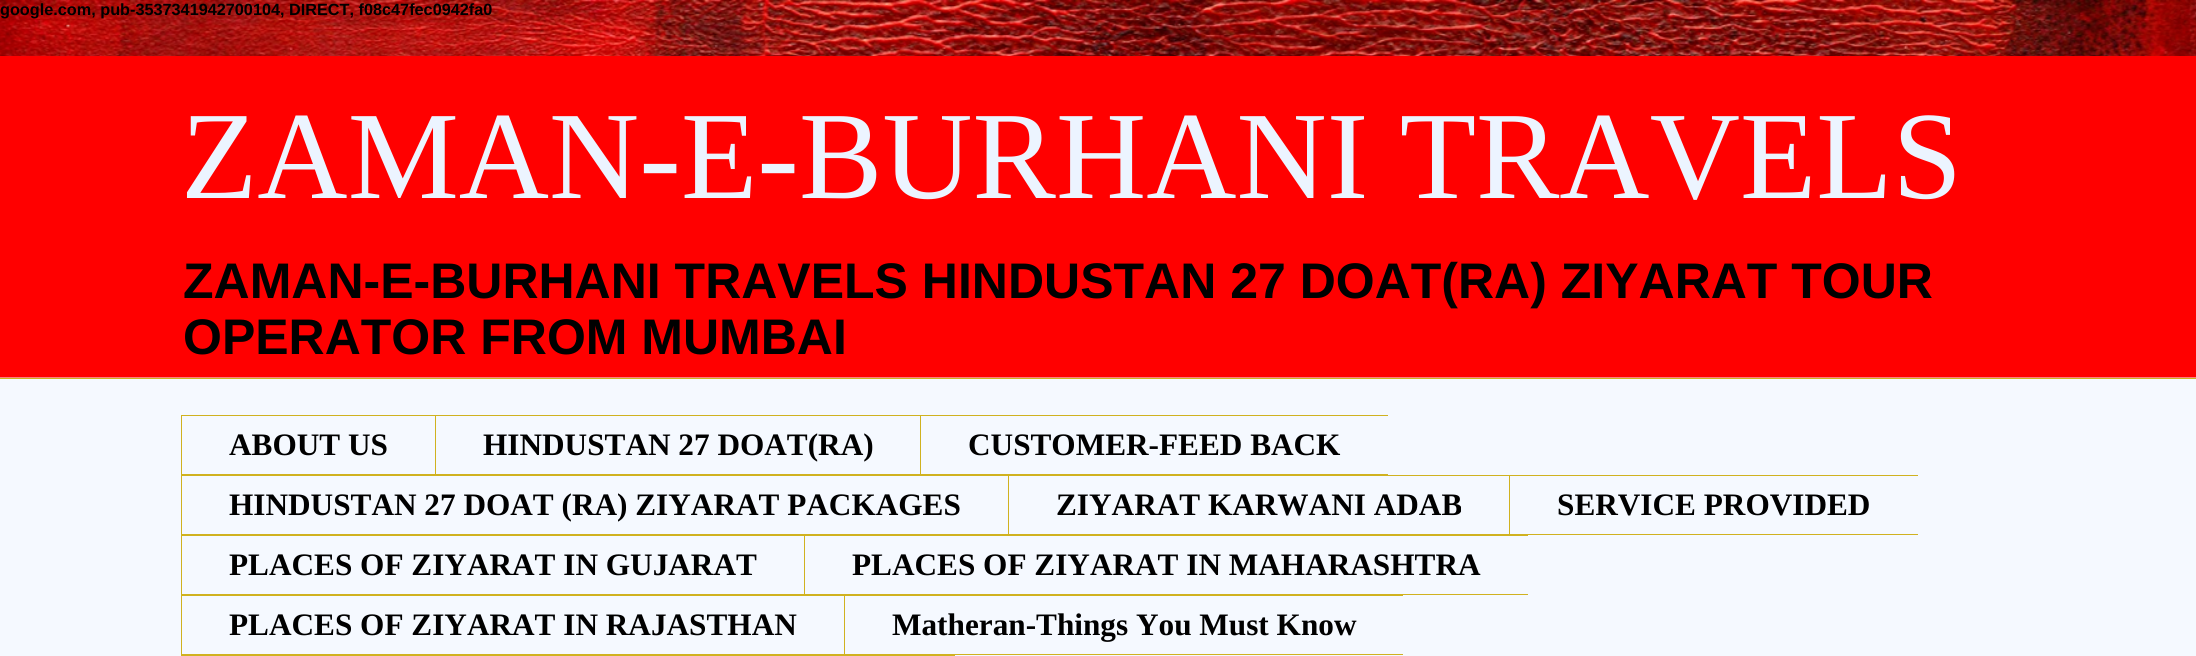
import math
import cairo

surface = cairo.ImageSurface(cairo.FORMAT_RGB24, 2196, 656)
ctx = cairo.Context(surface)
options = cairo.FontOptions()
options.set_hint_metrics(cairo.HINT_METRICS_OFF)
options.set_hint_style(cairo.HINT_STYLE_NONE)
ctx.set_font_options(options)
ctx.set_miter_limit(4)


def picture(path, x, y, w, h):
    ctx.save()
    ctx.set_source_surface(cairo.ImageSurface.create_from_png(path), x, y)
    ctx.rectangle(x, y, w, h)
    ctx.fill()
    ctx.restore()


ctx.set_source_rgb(1, 1, 1)
ctx.paint()
picture("img1.png", 0, 0, 2196, 56)
ctx.select_font_face("Liberation Sans", cairo.FONT_SLANT_NORMAL, cairo.FONT_WEIGHT_BOLD)
ctx.set_font_size(16.25)
ctx.set_source_rgb(0, 0, 0)
ctx.move_to(0, 15)
ctx.show_text("google.com, pub-3537341942700104, DIRECT, f08c47fec0942fa0")
ctx.set_source_rgb(1, 0, 0)
ctx.rectangle(0, 56, 2196, 322)
ctx.fill()
ctx.select_font_face("Liberation Serif")
ctx.set_font_size(125)
ctx.set_source_rgb(0.925, 0.957, 1)
ctx.move_to(181, 198)
ctx.show_text("ZAMAN-E-BURHANI TRAVELS")
ctx.select_font_face("Liberation Sans", cairo.FONT_SLANT_NORMAL, cairo.FONT_WEIGHT_BOLD)
ctx.set_font_size(50)
ctx.set_source_rgb(0, 0, 0)
ctx.move_to(183, 298)
ctx.show_text("ZAMAN-E-BURHANI TRAVELS HINDUSTAN 27 DOAT(RA) ZIYARAT TOUR")
ctx.move_to(183, 354)
ctx.show_text("OPERATOR FROM MUMBAI")
ctx.set_source_rgb(0.925, 0.957, 1)
ctx.rectangle(0, 379, 2196, 277)
ctx.fill()
ctx.set_source_rgba(1, 1, 1, 0.49)
ctx.rectangle(0, 377, 2196, 279)
ctx.fill()
ctx.set_source_rgb(0.816, 0.698, 0.125)
ctx.rectangle(0, 378, 2196, 1)
ctx.fill()
ctx.rectangle(181, 415, 1207, 1)
ctx.fill()
ctx.rectangle(181, 474, 1207, 1)
ctx.fill()
ctx.rectangle(181, 415, 1, 60)
ctx.fill()
ctx.select_font_face("Liberation Serif", cairo.FONT_SLANT_NORMAL, cairo.FONT_WEIGHT_BOLD)
ctx.set_font_size(31.25)
ctx.set_source_rgb(0, 0, 0)
ctx.move_to(229, 455)
ctx.show_text("ABOUT US")
ctx.set_source_rgb(0.816, 0.698, 0.125)
ctx.rectangle(435, 415, 1, 60)
ctx.fill()
ctx.set_source_rgb(0, 0, 0)
ctx.move_to(483, 455)
ctx.show_text("HINDUSTAN 27 DOAT(RA)")
ctx.set_source_rgb(0.816, 0.698, 0.125)
ctx.rectangle(920, 415, 1, 60)
ctx.fill()
ctx.set_source_rgb(0, 0, 0)
ctx.move_to(968, 455)
ctx.show_text("CUSTOMER-FEED BACK")
ctx.set_source_rgb(0.816, 0.698, 0.125)
ctx.rectangle(181, 475, 1737, 1)
ctx.fill()
ctx.rectangle(181, 534, 1737, 1)
ctx.fill()
ctx.rectangle(181, 475, 1, 60)
ctx.fill()
ctx.set_source_rgb(0, 0, 0)
ctx.move_to(229, 515)
ctx.show_text("HINDUSTAN 27 DOAT (RA) ZIYARAT PACKAGES")
ctx.set_source_rgb(0.816, 0.698, 0.125)
ctx.rectangle(1008, 475, 1, 60)
ctx.fill()
ctx.set_source_rgb(0, 0, 0)
ctx.move_to(1056, 515)
ctx.show_text("ZIYARAT KARWANI ADAB")
ctx.set_source_rgb(0.816, 0.698, 0.125)
ctx.rectangle(1509, 475, 1, 60)
ctx.fill()
ctx.set_source_rgb(0, 0, 0)
ctx.move_to(1557, 515)
ctx.show_text("SERVICE PROVIDED")
ctx.set_source_rgb(0.816, 0.698, 0.125)
ctx.rectangle(181, 535, 1347, 1)
ctx.fill()
ctx.rectangle(181, 594, 1347, 1)
ctx.fill()
ctx.rectangle(181, 535, 1, 60)
ctx.fill()
ctx.set_source_rgb(0, 0, 0)
ctx.move_to(229, 575)
ctx.show_text("PLACES OF ZIYARAT IN GUJARAT")
ctx.set_source_rgb(0.816, 0.698, 0.125)
ctx.rectangle(804, 535, 1, 60)
ctx.fill()
ctx.set_source_rgb(0, 0, 0)
ctx.move_to(852, 575)
ctx.show_text("PLACES OF ZIYARAT IN MAHARASHTRA")
ctx.set_source_rgb(0.816, 0.698, 0.125)
ctx.rectangle(181, 595, 1222, 1)
ctx.fill()
ctx.rectangle(181, 654, 1222, 1)
ctx.fill()
ctx.rectangle(181, 595, 1, 60)
ctx.fill()
ctx.set_source_rgb(0, 0, 0)
ctx.move_to(229, 635)
ctx.show_text("PLACES OF ZIYARAT IN RAJASTHAN")
ctx.set_source_rgb(0.816, 0.698, 0.125)
ctx.rectangle(844, 595, 1, 60)
ctx.fill()
ctx.set_source_rgb(0, 0, 0)
ctx.move_to(892, 635)
ctx.show_text("Matheran-Things You Must Know")
ctx.rectangle(181.5, 655.5, 773, 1)
ctx.set_source_rgb(0.816, 0.698, 0.125)
ctx.set_line_width(1)
ctx.stroke()
surface.write_to_png("page.png")
